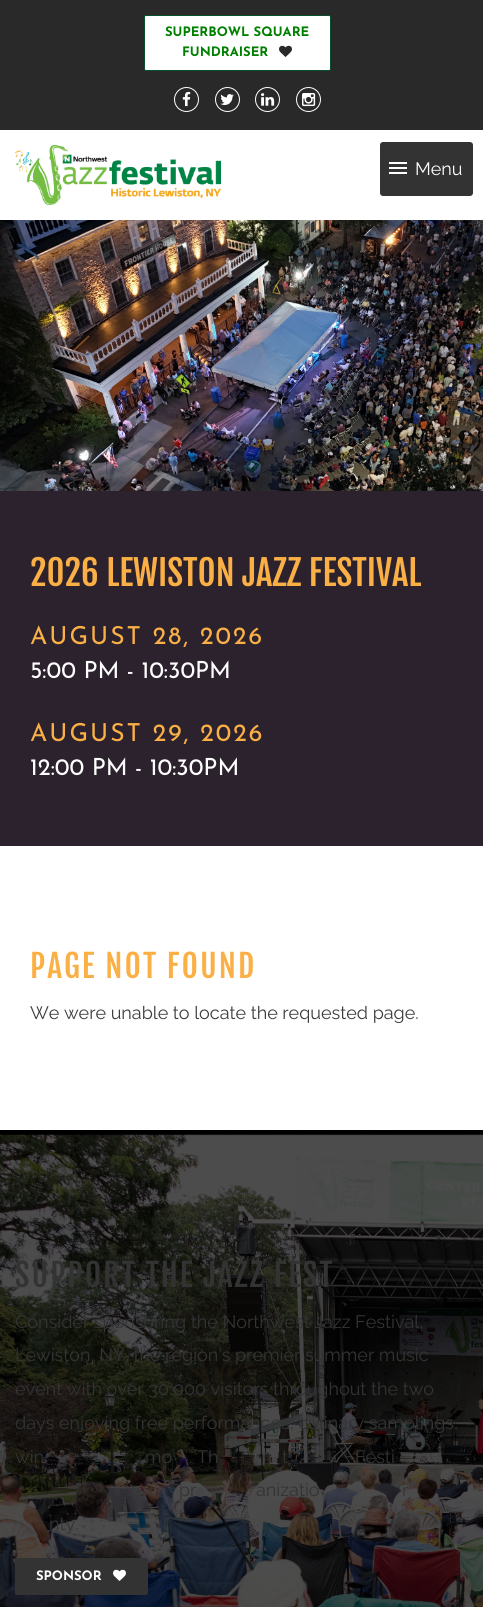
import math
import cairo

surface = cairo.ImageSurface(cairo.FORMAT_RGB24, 483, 1607)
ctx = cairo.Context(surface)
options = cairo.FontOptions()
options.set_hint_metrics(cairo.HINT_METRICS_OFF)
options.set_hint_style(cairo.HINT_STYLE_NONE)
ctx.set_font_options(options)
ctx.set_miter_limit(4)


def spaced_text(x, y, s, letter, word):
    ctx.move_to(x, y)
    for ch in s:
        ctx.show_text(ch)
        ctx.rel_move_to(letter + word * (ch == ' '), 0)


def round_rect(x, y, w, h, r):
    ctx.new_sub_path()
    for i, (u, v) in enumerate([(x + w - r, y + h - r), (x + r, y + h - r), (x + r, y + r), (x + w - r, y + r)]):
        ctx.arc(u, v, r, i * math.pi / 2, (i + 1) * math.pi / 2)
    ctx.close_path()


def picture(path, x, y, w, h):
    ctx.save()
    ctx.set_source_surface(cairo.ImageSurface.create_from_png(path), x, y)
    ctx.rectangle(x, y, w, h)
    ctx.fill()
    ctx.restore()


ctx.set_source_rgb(1, 1, 1)
ctx.paint()
ctx.set_source_rgb(0.161, 0.161, 0.161)
ctx.rectangle(0, 0, 483, 130)
ctx.fill()
ctx.set_source_rgb(1, 1, 1)
round_rect(144.5, 15.5, 186, 55, 1.5)
ctx.fill_preserve()
ctx.set_source_rgb(0.027, 0.314, 0.176)
ctx.set_line_width(1)
ctx.stroke()
ctx.select_font_face("Josefin Sans", cairo.FONT_SLANT_NORMAL, cairo.FONT_WEIGHT_BOLD)
ctx.set_font_size(13)
ctx.set_source_rgb(0, 0.502, 0)
ctx.move_to(165, 36)
ctx.show_text("SUPERBOWL SQUARE")
ctx.move_to(182, 56)
ctx.show_text("FUNDRAISER")
picture("img1.png", 279, 45, 13, 12)
ctx.arc(186.5, 99.5, 12, 0, 2 * math.pi)
ctx.set_source_rgb(1, 1, 1)
ctx.stroke()
picture("img2.png", 182, 91, 9, 16)
ctx.arc(227.5, 99.5, 12, 0, 2 * math.pi)
ctx.stroke()
picture("img3.png", 220, 94, 14, 11)
ctx.arc(267.5, 99.5, 12, 0, 2 * math.pi)
ctx.stroke()
picture("img4.png", 261, 93, 14, 13)
ctx.arc(308.5, 99.5, 12, 0, 2 * math.pi)
ctx.stroke()
picture("img5.png", 302, 93, 14, 14)
picture("img6.png", 15, 145, 206, 60)
ctx.set_source_rgb(0.2, 0.2, 0.2)
round_rect(380, 142, 93, 54, 3)
ctx.fill()
ctx.set_source_rgb(1, 1, 1)
ctx.rectangle(389, 172, 18, 2)
ctx.fill()
ctx.rectangle(389, 167, 18, 2)
ctx.fill()
ctx.rectangle(389, 162, 18, 2)
ctx.fill()
ctx.select_font_face("Raleway")
ctx.set_font_size(18)
ctx.move_to(415, 175)
ctx.show_text("Menu")
ctx.set_source_rgb(0.173, 0.133, 0.176)
ctx.rectangle(0, 491, 483, 355)
ctx.fill()
picture("img7.png", 0, 220, 483, 271)
ctx.select_font_face("Fjalla One")
ctx.set_font_size(34.7)
ctx.set_source_rgb(0.984, 0.69, 0.275)
ctx.move_to(30, 586)
ctx.show_text("2026 LEWISTON JAZZ FESTIVAL")
ctx.select_font_face("Josefin Sans")
ctx.set_font_size(24.75)
spaced_text(30, 644, "AUGUST 28, 2026", 2, 0)
ctx.set_font_size(23.6)
ctx.set_source_rgb(1, 1, 1)
ctx.move_to(30, 678)
ctx.show_text("5:00 PM - 10:30PM")
ctx.set_font_size(24.75)
ctx.set_source_rgb(0.984, 0.69, 0.275)
spaced_text(30, 741, "AUGUST 29, 2026", 2, 0)
ctx.set_font_size(23.6)
ctx.set_source_rgb(1, 1, 1)
ctx.move_to(30, 775)
ctx.show_text("12:00 PM - 10:30PM")
ctx.select_font_face("Fjalla One")
ctx.set_font_size(31.5)
ctx.set_source_rgb(0.984, 0.69, 0.275)
spaced_text(30, 978, "PAGE NOT FOUND", 2, 0)
ctx.select_font_face("Raleway")
ctx.set_font_size(18)
ctx.set_source_rgb(0.239, 0.239, 0.239)
ctx.move_to(30, 1019)
ctx.show_text("We were unable to locate the requested page.")
picture("img8.png", 0, 1130, 483, 477)
ctx.select_font_face("Fjalla One")
ctx.set_font_size(31.5)
ctx.set_source_rgb(0.2, 0.2, 0.2)
spaced_text(15, 1287, "SUPPORT THE JAZZ FEST", 2, 0)
ctx.select_font_face("Raleway")
ctx.set_font_size(18)
ctx.move_to(15, 1328)
ctx.show_text("Consider sponsoring the Northwest Jazz Festival,")
ctx.move_to(15, 1361)
ctx.show_text("Lewiston, NY, the region’s premier summer music")
ctx.move_to(15, 1395)
ctx.show_text("event with over 30,000 visitors throughout the two")
ctx.move_to(15, 1429)
ctx.show_text("days enjoying free performances, culinary samplings,")
ctx.move_to(15, 1463)
ctx.show_text("win")
ctx.move_to(145, 1463)
ctx.show_text("mo")
ctx.move_to(189, 1463)
ctx.show_text(". Th")
ctx.move_to(282, 1463)
ctx.show_text("t")
ctx.move_to(355, 1463)
ctx.show_text("Festi")
ctx.move_to(448, 1463)
ctx.show_text(".")
ctx.move_to(179, 1496)
ctx.show_text("pr")
ctx.move_to(256, 1496)
ctx.show_text("anizatio")
ctx.move_to(402, 1496)
ctx.show_text("r")
ctx.move_to(49, 1530)
ctx.show_text("nty.")
round_rect(15.5, 1558.5, 132, 36, 1.5)
ctx.fill_preserve()
ctx.stroke()
ctx.select_font_face("Josefin Sans", cairo.FONT_SLANT_NORMAL, cairo.FONT_WEIGHT_BOLD)
ctx.set_font_size(13)
ctx.set_source_rgb(1, 1, 1)
ctx.move_to(36, 1580)
ctx.show_text("SPONSOR")
picture("img9.png", 113, 1569, 13, 12)
surface.write_to_png("page.png")
